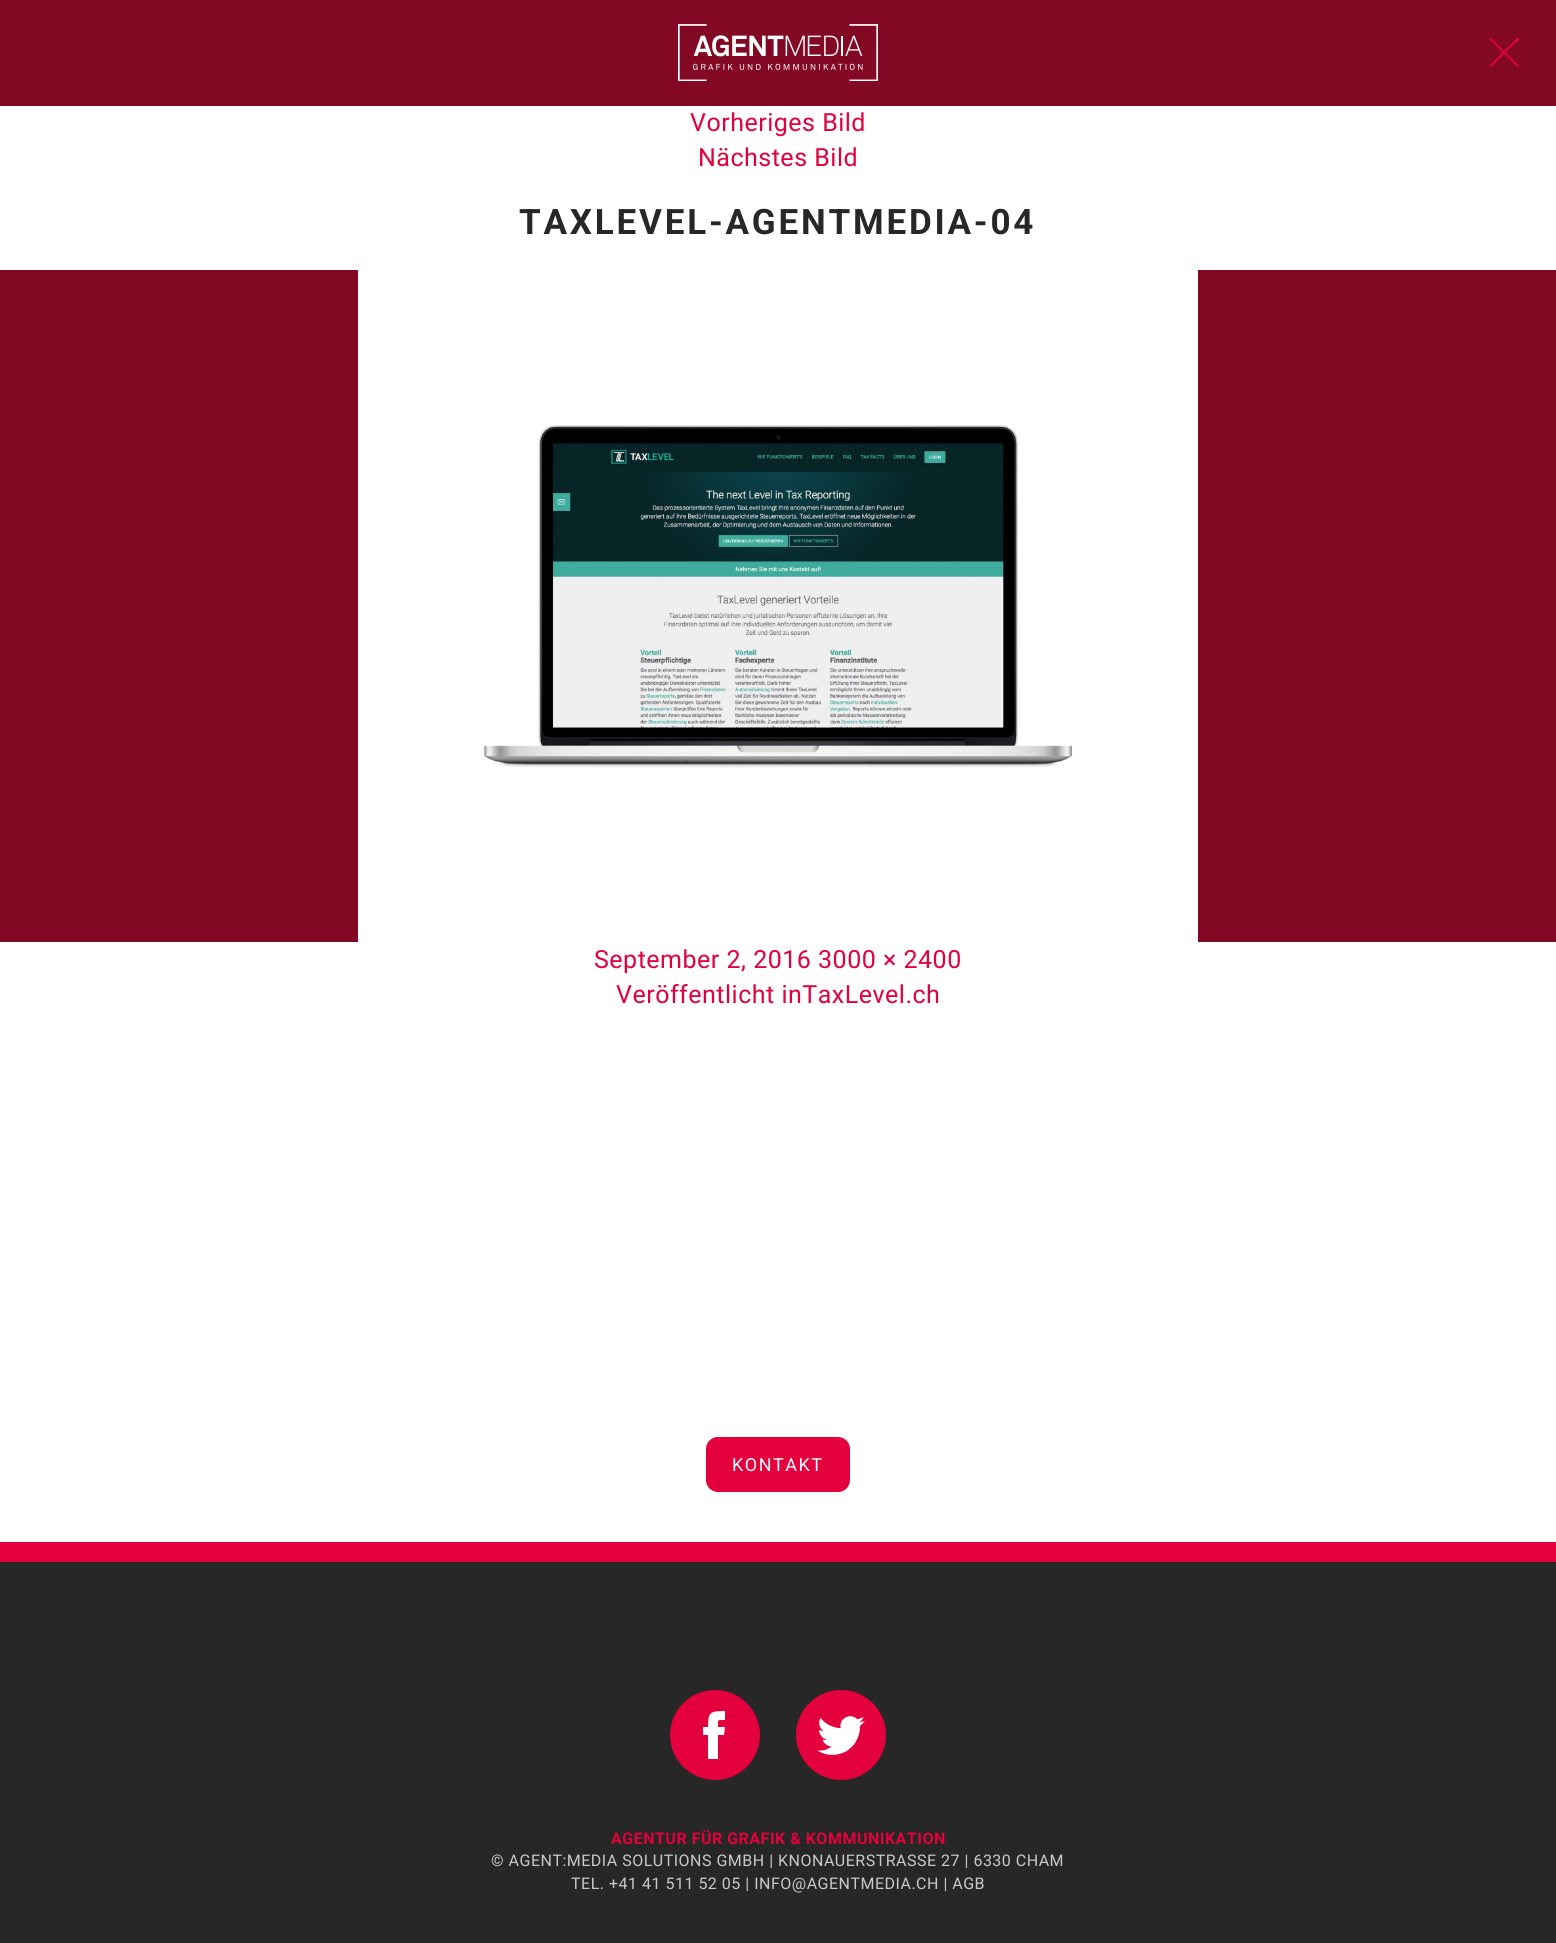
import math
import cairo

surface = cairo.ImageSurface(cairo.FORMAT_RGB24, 1556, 1943)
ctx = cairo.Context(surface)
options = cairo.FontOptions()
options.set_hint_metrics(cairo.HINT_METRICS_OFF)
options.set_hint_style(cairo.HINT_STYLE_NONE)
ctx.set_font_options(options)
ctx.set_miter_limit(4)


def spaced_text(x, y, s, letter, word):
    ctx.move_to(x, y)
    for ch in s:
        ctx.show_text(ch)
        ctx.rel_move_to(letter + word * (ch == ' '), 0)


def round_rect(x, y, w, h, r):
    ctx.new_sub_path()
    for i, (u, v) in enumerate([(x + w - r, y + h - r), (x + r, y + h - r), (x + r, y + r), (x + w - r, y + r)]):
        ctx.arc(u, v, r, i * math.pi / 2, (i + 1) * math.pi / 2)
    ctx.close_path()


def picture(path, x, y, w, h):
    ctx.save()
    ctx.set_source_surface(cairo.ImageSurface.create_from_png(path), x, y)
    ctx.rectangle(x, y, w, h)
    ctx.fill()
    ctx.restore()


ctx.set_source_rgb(1, 1, 1)
ctx.paint()
ctx.set_source_rgb(0.51, 0.035, 0.141)
ctx.rectangle(0, 0, 1556, 106)
ctx.fill()
picture("img1.png", 678, 24, 200, 57)
ctx.set_source_rgb(0.894, 0, 0.235)
ctx.new_path()
ctx.move_to(1491.5, 38.5)
ctx.line_to(1518.5, 65.5)
ctx.line_to(1518.5, 66.5)
ctx.curve_to(1517.5, 68.5, 1515, 64.5, 1512.5, 62)
ctx.line_to(1490, 40)
ctx.curve_to(1489, 39, 1490.5, 37.5, 1491.5, 38.5)
ctx.close_path()
ctx.fill()
ctx.new_path()
ctx.move_to(1490, 65)
ctx.line_to(1517, 38)
ctx.line_to(1518.5, 38)
ctx.curve_to(1520, 39.5, 1516.5, 42, 1514, 44)
ctx.line_to(1491.5, 66.5)
ctx.curve_to(1490.5, 67.5, 1489, 66, 1490, 65)
ctx.close_path()
ctx.fill()
ctx.select_font_face("Roboto")
ctx.set_font_size(25)
spaced_text(690, 131, "Vorheriges Bild", 0.5, 0)
spaced_text(698, 166, "Nächstes Bild", 0.5, 0)
ctx.select_font_face("Roboto", cairo.FONT_SLANT_NORMAL, cairo.FONT_WEIGHT_BOLD)
ctx.set_font_size(35)
ctx.set_source_rgb(0.153, 0.153, 0.153)
spaced_text(519, 234, "TAXLEVEL-AGENTMEDIA-04", 2.8, 0)
ctx.set_source_rgb(0.51, 0.035, 0.141)
ctx.rectangle(0, 270, 1556, 672)
ctx.fill()
picture("img2.png", 358, 270, 840, 672)
ctx.select_font_face("Roboto")
ctx.set_font_size(25)
ctx.set_source_rgb(0.894, 0, 0.235)
spaced_text(594, 968, "September 2, 2016 3000 × 2400", 0.5, 0)
spaced_text(616, 1003, "Veröffentlicht inTaxLevel.ch", 0.5, 0)
round_rect(706.5, 1437.5, 143, 54, 11.5)
ctx.fill_preserve()
ctx.set_line_width(1)
ctx.stroke()
ctx.set_font_size(18)
ctx.set_source_rgb(1, 1, 1)
spaced_text(732, 1471, "KONTAKT", 1.5, 0)
ctx.set_source_rgb(0.153, 0.153, 0.153)
ctx.rectangle(0, 1562, 1556, 381)
ctx.fill()
ctx.set_source_rgb(0.894, 0, 0.235)
ctx.rectangle(0, 1542, 1556, 20)
ctx.fill()
ctx.arc(715, 1735, 45, 0, 2 * math.pi)
ctx.fill()
ctx.set_source_rgb(1, 1, 1)
ctx.new_path()
ctx.move_to(725, 1711)
ctx.line_to(725, 1720)
ctx.curve_to(717, 1720, 718, 1719, 718, 1727)
ctx.line_to(725, 1727)
ctx.line_to(724, 1735)
ctx.line_to(718, 1735)
ctx.line_to(718, 1759)
ctx.line_to(708, 1759)
ctx.line_to(708, 1735)
ctx.line_to(703, 1735)
ctx.line_to(703, 1727)
ctx.line_to(708, 1727)
ctx.curve_to(708, 1712, 710, 1711, 725, 1711)
ctx.close_path()
ctx.fill()
ctx.set_source_rgb(0.894, 0, 0.235)
ctx.arc(841, 1735, 45, 0, 2 * math.pi)
ctx.fill()
picture("img3.png", 817, 1716, 48, 39)
ctx.select_font_face("Roboto", cairo.FONT_SLANT_NORMAL, cairo.FONT_WEIGHT_BOLD)
ctx.set_font_size(16)
spaced_text(611, 1844, "AGENTUR FÜR GRAFIK & KOMMUNIKATION", 0.5, 0)
ctx.select_font_face("Roboto")
ctx.set_source_rgb(0.788, 0.788, 0.788)
spaced_text(491, 1866, "© AGENT:MEDIA SOLUTIONS GMBH | KNONAUERSTRASSE 27 | 6330 CHAM", 0.5, 0)
spaced_text(571, 1889, "TEL. +41 41 511 52 05 | INFO@AGENTMEDIA.CH | AGB", 0.5, 0)
surface.write_to_png("page.png")
